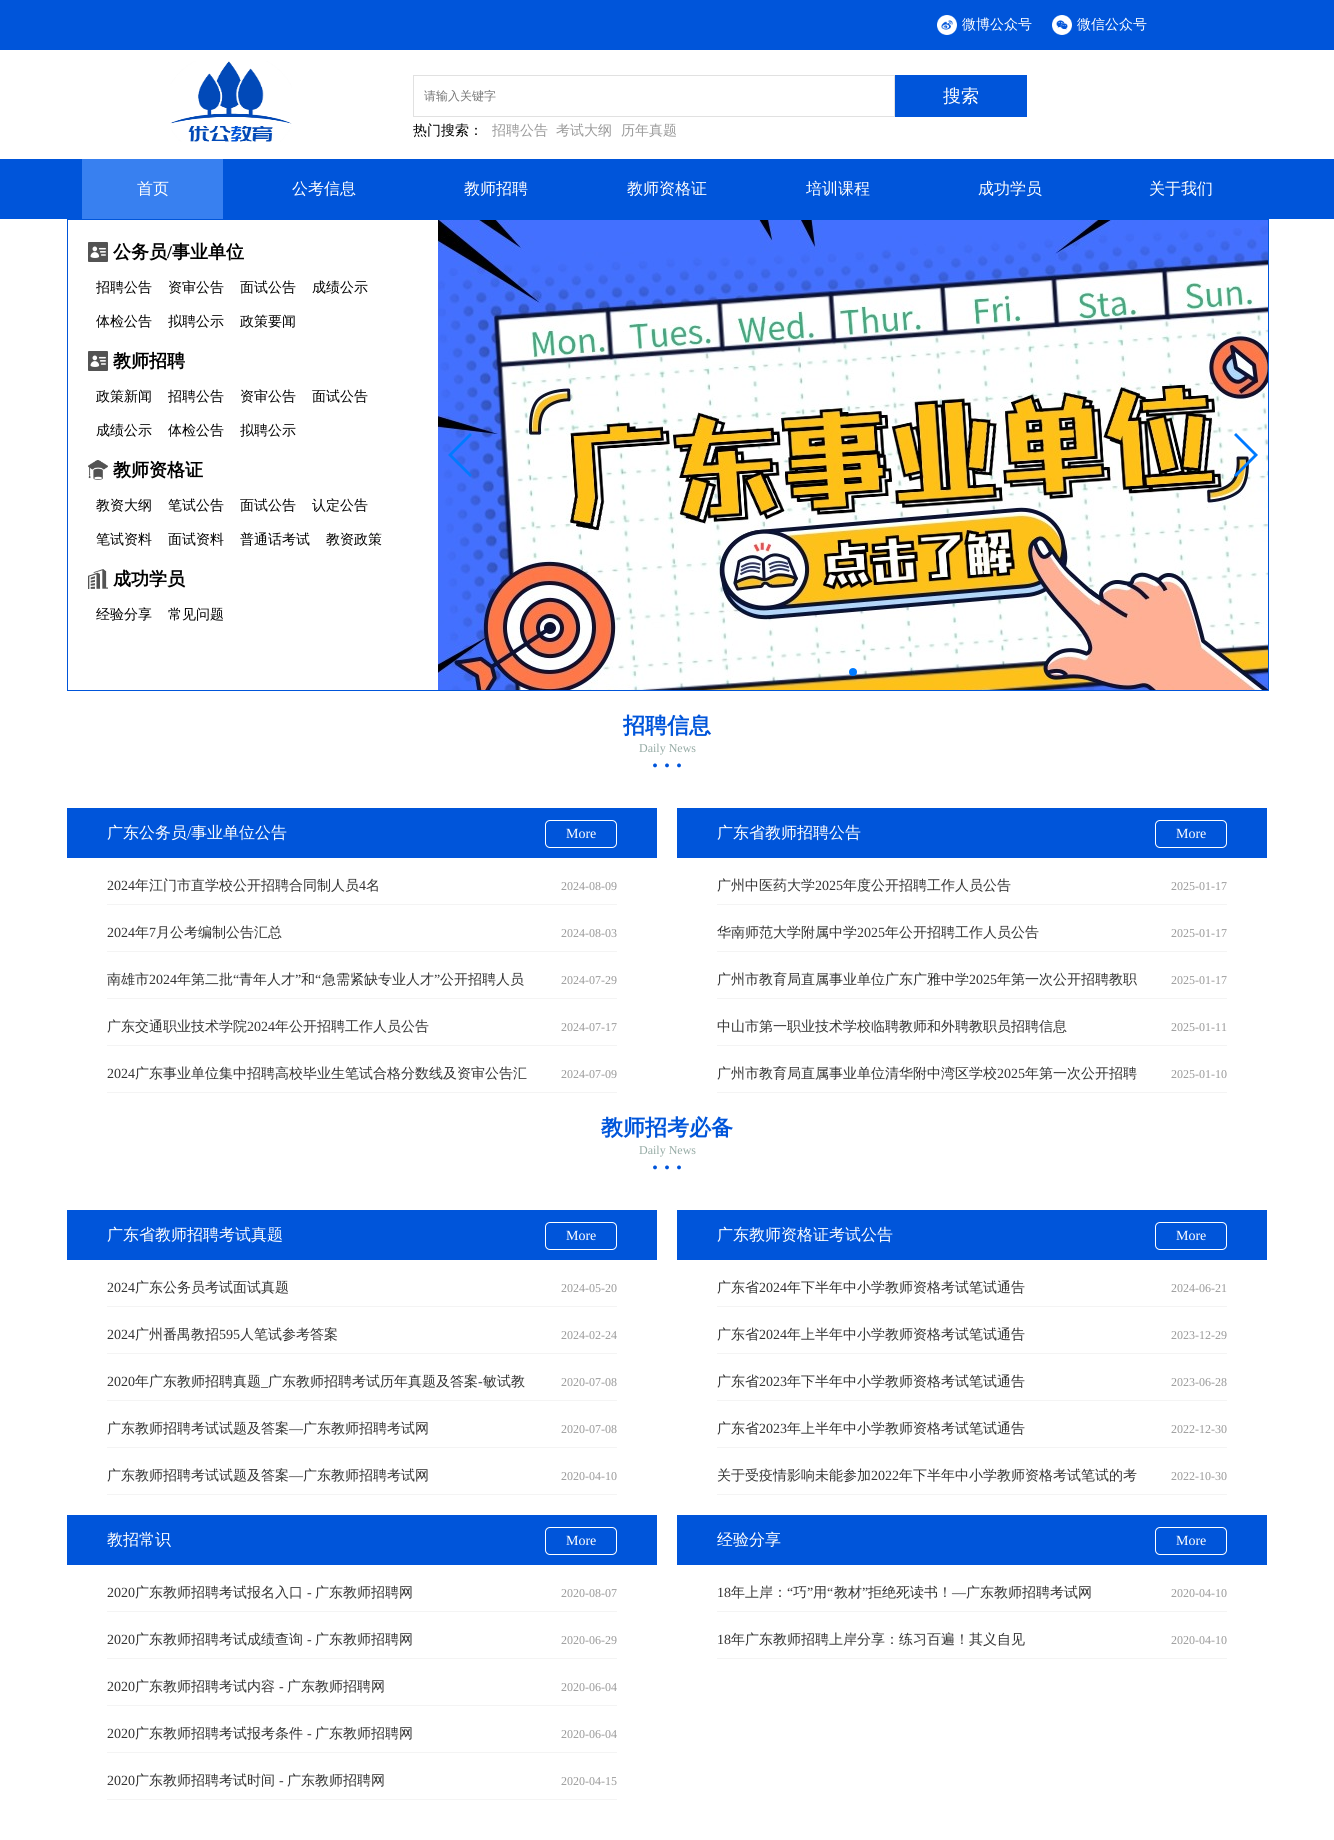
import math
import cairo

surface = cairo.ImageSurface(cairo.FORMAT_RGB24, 1334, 1840)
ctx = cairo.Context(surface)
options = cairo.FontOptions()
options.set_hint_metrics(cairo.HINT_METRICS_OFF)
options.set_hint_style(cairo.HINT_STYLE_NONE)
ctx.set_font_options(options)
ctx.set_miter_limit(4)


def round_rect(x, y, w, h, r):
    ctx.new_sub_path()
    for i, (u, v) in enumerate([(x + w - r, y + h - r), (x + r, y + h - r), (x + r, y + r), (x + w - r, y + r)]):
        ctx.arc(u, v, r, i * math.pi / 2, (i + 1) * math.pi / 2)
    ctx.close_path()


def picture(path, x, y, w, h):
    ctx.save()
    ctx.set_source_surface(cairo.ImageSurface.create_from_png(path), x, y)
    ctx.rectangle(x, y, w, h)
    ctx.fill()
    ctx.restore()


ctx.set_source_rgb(1, 1, 1)
ctx.paint()
ctx.set_source_rgb(0, 0.333, 0.855)
ctx.rectangle(0, 0, 1334, 50)
ctx.fill()
picture("img1.png", 937, 15, 20, 20)
ctx.select_font_face("WenQuanYi Zen Hei Medium")
ctx.set_font_size(14)
ctx.set_source_rgb(1, 1, 1)
ctx.move_to(962, 29)
ctx.show_text("微博公众号")
picture("img2.png", 1052, 15, 20, 20)
ctx.move_to(1077, 29)
ctx.show_text("微信公众号")
picture("img3.png", 170, 61, 122, 81)
ctx.rectangle(413.5, 75.5, 481, 41)
ctx.set_source_rgb(0.882, 0.882, 0.882)
ctx.set_line_width(1)
ctx.stroke()
ctx.set_font_size(12)
ctx.set_source_rgb(0.459, 0.459, 0.459)
ctx.move_to(424, 100)
ctx.show_text("请输入关键字")
ctx.set_source_rgb(0, 0.333, 0.855)
ctx.rectangle(895, 75, 132, 42)
ctx.fill()
ctx.set_font_size(18)
ctx.set_source_rgb(1, 1, 1)
ctx.move_to(943, 102)
ctx.show_text("搜索")
ctx.set_font_size(14)
ctx.set_source_rgb(0, 0, 0)
ctx.move_to(413, 135)
ctx.show_text("热门搜索：")
ctx.set_source_rgb(0.6, 0.6, 0.6)
ctx.move_to(492, 135)
ctx.show_text("招聘公告")
ctx.move_to(556, 135)
ctx.show_text("考试大纲")
ctx.move_to(621, 135)
ctx.show_text("历年真题")
ctx.set_source_rgb(0, 0.333, 0.855)
ctx.rectangle(0, 159, 1334, 60)
ctx.fill()
ctx.set_source_rgb(0.22, 0.502, 0.941)
ctx.rectangle(82, 159, 141, 60)
ctx.fill()
ctx.set_font_size(16)
ctx.set_source_rgb(1, 1, 1)
ctx.move_to(137, 194)
ctx.show_text("首页")
ctx.move_to(292, 194)
ctx.show_text("公考信息")
ctx.move_to(464, 194)
ctx.show_text("教师招聘")
ctx.move_to(627, 194)
ctx.show_text("教师资格证")
ctx.move_to(806, 194)
ctx.show_text("培训课程")
ctx.move_to(978, 194)
ctx.show_text("成功学员")
ctx.move_to(1149, 194)
ctx.show_text("关于我们")
ctx.rectangle(67.5, 219.5, 1201, 471)
ctx.set_source_rgb(0, 0.333, 0.855)
ctx.stroke()
picture("img4.png", 88, 242, 20, 20)
ctx.select_font_face("WenQuanYi Zen Hei", cairo.FONT_SLANT_NORMAL, cairo.FONT_WEIGHT_BOLD)
ctx.set_font_size(18)
ctx.set_source_rgb(0, 0, 0)
ctx.move_to(113, 258)
ctx.show_text("公务员")
ctx.select_font_face("Liberation Serif", cairo.FONT_SLANT_NORMAL, cairo.FONT_WEIGHT_BOLD)
ctx.move_to(167, 258)
ctx.show_text("/")
ctx.select_font_face("WenQuanYi Zen Hei", cairo.FONT_SLANT_NORMAL, cairo.FONT_WEIGHT_BOLD)
ctx.move_to(172, 258)
ctx.show_text("事业单位")
ctx.select_font_face("WenQuanYi Zen Hei Medium")
ctx.set_font_size(14)
ctx.move_to(96, 292)
ctx.show_text("招聘公告")
ctx.move_to(168, 292)
ctx.show_text("资审公告")
ctx.move_to(240, 292)
ctx.show_text("面试公告")
ctx.move_to(312, 292)
ctx.show_text("成绩公示")
ctx.move_to(96, 326)
ctx.show_text("体检公告")
ctx.move_to(168, 326)
ctx.show_text("拟聘公示")
ctx.move_to(240, 326)
ctx.show_text("政策要闻")
picture("img4.png", 88, 351, 20, 20)
ctx.select_font_face("WenQuanYi Zen Hei", cairo.FONT_SLANT_NORMAL, cairo.FONT_WEIGHT_BOLD)
ctx.set_font_size(18)
ctx.move_to(113, 367)
ctx.show_text("教师招聘")
ctx.select_font_face("WenQuanYi Zen Hei Medium")
ctx.set_font_size(14)
ctx.move_to(96, 401)
ctx.show_text("政策新闻")
ctx.move_to(168, 401)
ctx.show_text("招聘公告")
ctx.move_to(240, 401)
ctx.show_text("资审公告")
ctx.move_to(312, 401)
ctx.show_text("面试公告")
ctx.move_to(96, 435)
ctx.show_text("成绩公示")
ctx.move_to(168, 435)
ctx.show_text("体检公告")
ctx.move_to(240, 435)
ctx.show_text("拟聘公示")
picture("img5.png", 88, 460, 20, 20)
ctx.select_font_face("WenQuanYi Zen Hei", cairo.FONT_SLANT_NORMAL, cairo.FONT_WEIGHT_BOLD)
ctx.set_font_size(18)
ctx.move_to(113, 476)
ctx.show_text("教师资格证")
ctx.select_font_face("WenQuanYi Zen Hei Medium")
ctx.set_font_size(14)
ctx.move_to(96, 510)
ctx.show_text("教资大纲")
ctx.move_to(168, 510)
ctx.show_text("笔试公告")
ctx.move_to(240, 510)
ctx.show_text("面试公告")
ctx.move_to(312, 510)
ctx.show_text("认定公告")
ctx.move_to(96, 544)
ctx.show_text("笔试资料")
ctx.move_to(168, 544)
ctx.show_text("面试资料")
ctx.move_to(240, 544)
ctx.show_text("普通话考试")
ctx.move_to(326, 544)
ctx.show_text("教资政策")
picture("img6.png", 88, 569, 20, 20)
ctx.select_font_face("WenQuanYi Zen Hei", cairo.FONT_SLANT_NORMAL, cairo.FONT_WEIGHT_BOLD)
ctx.set_font_size(18)
ctx.move_to(113, 585)
ctx.show_text("成功学员")
ctx.select_font_face("WenQuanYi Zen Hei Medium")
ctx.set_font_size(14)
ctx.move_to(96, 619)
ctx.show_text("经验分享")
ctx.move_to(168, 619)
ctx.show_text("常见问题")
picture("img7.png", 438, 220, 830, 470)
ctx.set_source_rgb(0, 0.478, 1)
ctx.new_path()
ctx.move_to(448, 455)
ctx.line_to(470, 433)
ctx.line_to(472, 435)
ctx.line_to(452, 455)
ctx.line_to(472, 475)
ctx.line_to(470, 477)
ctx.close_path()
ctx.fill()
ctx.new_path()
ctx.move_to(1258, 455)
ctx.line_to(1236, 477)
ctx.line_to(1234, 475)
ctx.line_to(1254, 455)
ctx.line_to(1234, 435)
ctx.line_to(1236, 433)
ctx.close_path()
ctx.fill()
ctx.arc(853, 672, 4, 0, 2 * math.pi)
ctx.fill()
ctx.select_font_face("WenQuanYi Zen Hei", cairo.FONT_SLANT_NORMAL, cairo.FONT_WEIGHT_BOLD)
ctx.set_font_size(22)
ctx.set_source_rgb(0, 0.333, 0.855)
ctx.move_to(623, 733)
ctx.show_text("招聘信息")
ctx.select_font_face("Liberation Serif")
ctx.set_font_size(12)
ctx.set_source_rgb(0.584, 0.667, 0.643)
ctx.move_to(639, 752)
ctx.show_text("Daily News")
ctx.select_font_face("Liberation Serif", cairo.FONT_SLANT_NORMAL, cairo.FONT_WEIGHT_BOLD)
ctx.set_font_size(24)
ctx.set_source_rgb(0, 0.333, 0.855)
ctx.move_to(652, 767)
ctx.show_text(". . .")
ctx.rectangle(67, 808, 590, 50)
ctx.fill()
ctx.select_font_face("WenQuanYi Zen Hei Medium")
ctx.set_font_size(16)
ctx.set_source_rgb(1, 1, 1)
ctx.move_to(107, 838)
ctx.show_text("广东公务员")
ctx.select_font_face("Liberation Serif")
ctx.move_to(187, 838)
ctx.show_text("/")
ctx.select_font_face("WenQuanYi Zen Hei Medium")
ctx.move_to(191, 838)
ctx.show_text("事业单位公告")
round_rect(545.5, 820.5, 71, 27, 4.5)
ctx.stroke()
ctx.select_font_face("Liberation Serif")
ctx.set_font_size(14)
ctx.move_to(566, 838)
ctx.show_text("More")
ctx.set_source_rgb(0.957, 0.957, 0.957)
ctx.rectangle(107, 904, 510, 1)
ctx.fill()
ctx.set_source_rgb(0.2, 0.2, 0.2)
ctx.move_to(107, 890)
ctx.show_text("2024")
ctx.select_font_face("WenQuanYi Zen Hei Medium")
ctx.move_to(135, 890)
ctx.show_text("年江门市直学校公开招聘合同制人员")
ctx.select_font_face("Liberation Serif")
ctx.move_to(359, 890)
ctx.show_text("4")
ctx.select_font_face("WenQuanYi Zen Hei Medium")
ctx.move_to(366, 890)
ctx.show_text("名")
ctx.select_font_face("Liberation Serif")
ctx.set_font_size(12)
ctx.set_source_rgb(0.6, 0.6, 0.6)
ctx.move_to(561, 890)
ctx.show_text("2024-08-09")
ctx.set_source_rgb(0.957, 0.957, 0.957)
ctx.rectangle(107, 951, 510, 1)
ctx.fill()
ctx.set_font_size(14)
ctx.set_source_rgb(0.2, 0.2, 0.2)
ctx.move_to(107, 937)
ctx.show_text("2024")
ctx.select_font_face("WenQuanYi Zen Hei Medium")
ctx.move_to(135, 937)
ctx.show_text("年")
ctx.select_font_face("Liberation Serif")
ctx.move_to(149, 937)
ctx.show_text("7")
ctx.select_font_face("WenQuanYi Zen Hei Medium")
ctx.move_to(156, 937)
ctx.show_text("月公考编制公告汇总")
ctx.select_font_face("Liberation Serif")
ctx.set_font_size(12)
ctx.set_source_rgb(0.6, 0.6, 0.6)
ctx.move_to(561, 937)
ctx.show_text("2024-08-03")
ctx.set_source_rgb(0.957, 0.957, 0.957)
ctx.rectangle(107, 998, 510, 1)
ctx.fill()
ctx.select_font_face("WenQuanYi Zen Hei Medium")
ctx.set_font_size(14)
ctx.set_source_rgb(0.2, 0.2, 0.2)
ctx.move_to(107, 984)
ctx.show_text("南雄市")
ctx.select_font_face("Liberation Serif")
ctx.move_to(149, 984)
ctx.show_text("2024")
ctx.select_font_face("WenQuanYi Zen Hei Medium")
ctx.move_to(177, 984)
ctx.show_text("年第二批")
ctx.select_font_face("Liberation Serif")
ctx.move_to(233, 984)
ctx.show_text("“")
ctx.select_font_face("WenQuanYi Zen Hei Medium")
ctx.move_to(239, 984)
ctx.show_text("青年人才")
ctx.select_font_face("Liberation Serif")
ctx.move_to(295, 984)
ctx.show_text("”")
ctx.select_font_face("WenQuanYi Zen Hei Medium")
ctx.move_to(301, 984)
ctx.show_text("和")
ctx.select_font_face("Liberation Serif")
ctx.move_to(315, 984)
ctx.show_text("“")
ctx.select_font_face("WenQuanYi Zen Hei Medium")
ctx.move_to(322, 984)
ctx.show_text("急需紧缺专业人才")
ctx.select_font_face("Liberation Serif")
ctx.move_to(434, 984)
ctx.show_text("”")
ctx.select_font_face("WenQuanYi Zen Hei Medium")
ctx.move_to(440, 984)
ctx.show_text("公开招聘人员")
ctx.select_font_face("Liberation Serif")
ctx.set_font_size(12)
ctx.set_source_rgb(0.6, 0.6, 0.6)
ctx.move_to(561, 984)
ctx.show_text("2024-07-29")
ctx.set_source_rgb(0.957, 0.957, 0.957)
ctx.rectangle(107, 1045, 510, 1)
ctx.fill()
ctx.select_font_face("WenQuanYi Zen Hei Medium")
ctx.set_font_size(14)
ctx.set_source_rgb(0.2, 0.2, 0.2)
ctx.move_to(107, 1031)
ctx.show_text("广东交通职业技术学院")
ctx.select_font_face("Liberation Serif")
ctx.move_to(247, 1031)
ctx.show_text("2024")
ctx.select_font_face("WenQuanYi Zen Hei Medium")
ctx.move_to(275, 1031)
ctx.show_text("年公开招聘工作人员公告")
ctx.select_font_face("Liberation Serif")
ctx.set_font_size(12)
ctx.set_source_rgb(0.6, 0.6, 0.6)
ctx.move_to(561, 1031)
ctx.show_text("2024-07-17")
ctx.set_source_rgb(0.957, 0.957, 0.957)
ctx.rectangle(107, 1092, 510, 1)
ctx.fill()
ctx.set_font_size(14)
ctx.set_source_rgb(0.2, 0.2, 0.2)
ctx.move_to(107, 1078)
ctx.show_text("2024")
ctx.select_font_face("WenQuanYi Zen Hei Medium")
ctx.move_to(135, 1078)
ctx.show_text("广东事业单位集中招聘高校毕业生笔试合格分数线及资审公告汇")
ctx.select_font_face("Liberation Serif")
ctx.set_font_size(12)
ctx.set_source_rgb(0.6, 0.6, 0.6)
ctx.move_to(561, 1078)
ctx.show_text("2024-07-09")
ctx.set_source_rgb(0, 0.333, 0.855)
ctx.rectangle(677, 808, 590, 50)
ctx.fill()
ctx.select_font_face("WenQuanYi Zen Hei Medium")
ctx.set_font_size(16)
ctx.set_source_rgb(1, 1, 1)
ctx.move_to(717, 838)
ctx.show_text("广东省教师招聘公告")
round_rect(1155.5, 820.5, 71, 27, 4.5)
ctx.stroke()
ctx.select_font_face("Liberation Serif")
ctx.set_font_size(14)
ctx.move_to(1176, 838)
ctx.show_text("More")
ctx.set_source_rgb(0.957, 0.957, 0.957)
ctx.rectangle(717, 904, 510, 1)
ctx.fill()
ctx.select_font_face("WenQuanYi Zen Hei Medium")
ctx.set_source_rgb(0.2, 0.2, 0.2)
ctx.move_to(717, 890)
ctx.show_text("广州中医药大学")
ctx.select_font_face("Liberation Serif")
ctx.move_to(815, 890)
ctx.show_text("2025")
ctx.select_font_face("WenQuanYi Zen Hei Medium")
ctx.move_to(843, 890)
ctx.show_text("年度公开招聘工作人员公告")
ctx.select_font_face("Liberation Serif")
ctx.set_font_size(12)
ctx.set_source_rgb(0.6, 0.6, 0.6)
ctx.move_to(1171, 890)
ctx.show_text("2025-01-17")
ctx.set_source_rgb(0.957, 0.957, 0.957)
ctx.rectangle(717, 951, 510, 1)
ctx.fill()
ctx.select_font_face("WenQuanYi Zen Hei Medium")
ctx.set_font_size(14)
ctx.set_source_rgb(0.2, 0.2, 0.2)
ctx.move_to(717, 937)
ctx.show_text("华南师范大学附属中学")
ctx.select_font_face("Liberation Serif")
ctx.move_to(857, 937)
ctx.show_text("2025")
ctx.select_font_face("WenQuanYi Zen Hei Medium")
ctx.move_to(885, 937)
ctx.show_text("年公开招聘工作人员公告")
ctx.select_font_face("Liberation Serif")
ctx.set_font_size(12)
ctx.set_source_rgb(0.6, 0.6, 0.6)
ctx.move_to(1171, 937)
ctx.show_text("2025-01-17")
ctx.set_source_rgb(0.957, 0.957, 0.957)
ctx.rectangle(717, 998, 510, 1)
ctx.fill()
ctx.select_font_face("WenQuanYi Zen Hei Medium")
ctx.set_font_size(14)
ctx.set_source_rgb(0.2, 0.2, 0.2)
ctx.move_to(717, 984)
ctx.show_text("广州市教育局直属事业单位广东广雅中学")
ctx.select_font_face("Liberation Serif")
ctx.move_to(969, 984)
ctx.show_text("2025")
ctx.select_font_face("WenQuanYi Zen Hei Medium")
ctx.move_to(997, 984)
ctx.show_text("年第一次公开招聘教职")
ctx.select_font_face("Liberation Serif")
ctx.set_font_size(12)
ctx.set_source_rgb(0.6, 0.6, 0.6)
ctx.move_to(1171, 984)
ctx.show_text("2025-01-17")
ctx.set_source_rgb(0.957, 0.957, 0.957)
ctx.rectangle(717, 1045, 510, 1)
ctx.fill()
ctx.select_font_face("WenQuanYi Zen Hei Medium")
ctx.set_font_size(14)
ctx.set_source_rgb(0.2, 0.2, 0.2)
ctx.move_to(717, 1031)
ctx.show_text("中山市第一职业技术学校临聘教师和外聘教职员招聘信息")
ctx.select_font_face("Liberation Serif")
ctx.set_font_size(12)
ctx.set_source_rgb(0.6, 0.6, 0.6)
ctx.move_to(1171, 1031)
ctx.show_text("2025-01-11")
ctx.set_source_rgb(0.957, 0.957, 0.957)
ctx.rectangle(717, 1092, 510, 1)
ctx.fill()
ctx.select_font_face("WenQuanYi Zen Hei Medium")
ctx.set_font_size(14)
ctx.set_source_rgb(0.2, 0.2, 0.2)
ctx.move_to(717, 1078)
ctx.show_text("广州市教育局直属事业单位清华附中湾区学校")
ctx.select_font_face("Liberation Serif")
ctx.move_to(997, 1078)
ctx.show_text("2025")
ctx.select_font_face("WenQuanYi Zen Hei Medium")
ctx.move_to(1025, 1078)
ctx.show_text("年第一次公开招聘")
ctx.select_font_face("Liberation Serif")
ctx.set_font_size(12)
ctx.set_source_rgb(0.6, 0.6, 0.6)
ctx.move_to(1171, 1078)
ctx.show_text("2025-01-10")
ctx.select_font_face("WenQuanYi Zen Hei", cairo.FONT_SLANT_NORMAL, cairo.FONT_WEIGHT_BOLD)
ctx.set_font_size(22)
ctx.set_source_rgb(0, 0.333, 0.855)
ctx.move_to(601, 1135)
ctx.show_text("教师招考必备")
ctx.select_font_face("Liberation Serif")
ctx.set_font_size(12)
ctx.set_source_rgb(0.584, 0.667, 0.643)
ctx.move_to(639, 1154)
ctx.show_text("Daily News")
ctx.select_font_face("Liberation Serif", cairo.FONT_SLANT_NORMAL, cairo.FONT_WEIGHT_BOLD)
ctx.set_font_size(24)
ctx.set_source_rgb(0, 0.333, 0.855)
ctx.move_to(652, 1169)
ctx.show_text(". . .")
ctx.rectangle(67, 1210, 590, 50)
ctx.fill()
ctx.select_font_face("WenQuanYi Zen Hei Medium")
ctx.set_font_size(16)
ctx.set_source_rgb(1, 1, 1)
ctx.move_to(107, 1240)
ctx.show_text("广东省教师招聘考试真题")
round_rect(545.5, 1222.5, 71, 27, 4.5)
ctx.stroke()
ctx.select_font_face("Liberation Serif")
ctx.set_font_size(14)
ctx.move_to(566, 1240)
ctx.show_text("More")
ctx.set_source_rgb(0.957, 0.957, 0.957)
ctx.rectangle(107, 1306, 510, 1)
ctx.fill()
ctx.set_source_rgb(0.2, 0.2, 0.2)
ctx.move_to(107, 1292)
ctx.show_text("2024")
ctx.select_font_face("WenQuanYi Zen Hei Medium")
ctx.move_to(135, 1292)
ctx.show_text("广东公务员考试面试真题")
ctx.select_font_face("Liberation Serif")
ctx.set_font_size(12)
ctx.set_source_rgb(0.6, 0.6, 0.6)
ctx.move_to(561, 1292)
ctx.show_text("2024-05-20")
ctx.set_source_rgb(0.957, 0.957, 0.957)
ctx.rectangle(107, 1353, 510, 1)
ctx.fill()
ctx.set_font_size(14)
ctx.set_source_rgb(0.2, 0.2, 0.2)
ctx.move_to(107, 1339)
ctx.show_text("2024")
ctx.select_font_face("WenQuanYi Zen Hei Medium")
ctx.move_to(135, 1339)
ctx.show_text("广州番禺教招")
ctx.select_font_face("Liberation Serif")
ctx.move_to(219, 1339)
ctx.show_text("595")
ctx.select_font_face("WenQuanYi Zen Hei Medium")
ctx.move_to(240, 1339)
ctx.show_text("人笔试参考答案")
ctx.select_font_face("Liberation Serif")
ctx.set_font_size(12)
ctx.set_source_rgb(0.6, 0.6, 0.6)
ctx.move_to(561, 1339)
ctx.show_text("2024-02-24")
ctx.set_source_rgb(0.957, 0.957, 0.957)
ctx.rectangle(107, 1400, 510, 1)
ctx.fill()
ctx.set_font_size(14)
ctx.set_source_rgb(0.2, 0.2, 0.2)
ctx.move_to(107, 1386)
ctx.show_text("2020")
ctx.select_font_face("WenQuanYi Zen Hei Medium")
ctx.move_to(135, 1386)
ctx.show_text("年广东教师招聘真题")
ctx.select_font_face("Liberation Serif")
ctx.move_to(261, 1386)
ctx.show_text("_")
ctx.select_font_face("WenQuanYi Zen Hei Medium")
ctx.move_to(268, 1386)
ctx.show_text("广东教师招聘考试历年真题及答案")
ctx.select_font_face("Liberation Serif")
ctx.move_to(478, 1386)
ctx.show_text("-")
ctx.select_font_face("WenQuanYi Zen Hei Medium")
ctx.move_to(483, 1386)
ctx.show_text("敏试教")
ctx.select_font_face("Liberation Serif")
ctx.set_font_size(12)
ctx.set_source_rgb(0.6, 0.6, 0.6)
ctx.move_to(561, 1386)
ctx.show_text("2020-07-08")
ctx.set_source_rgb(0.957, 0.957, 0.957)
ctx.rectangle(107, 1447, 510, 1)
ctx.fill()
ctx.select_font_face("WenQuanYi Zen Hei Medium")
ctx.set_font_size(14)
ctx.set_source_rgb(0.2, 0.2, 0.2)
ctx.move_to(107, 1433)
ctx.show_text("广东教师招聘考试试题及答案")
ctx.select_font_face("Liberation Serif")
ctx.move_to(289, 1433)
ctx.show_text("—")
ctx.select_font_face("WenQuanYi Zen Hei Medium")
ctx.move_to(303, 1433)
ctx.show_text("广东教师招聘考试网")
ctx.select_font_face("Liberation Serif")
ctx.set_font_size(12)
ctx.set_source_rgb(0.6, 0.6, 0.6)
ctx.move_to(561, 1433)
ctx.show_text("2020-07-08")
ctx.set_source_rgb(0.957, 0.957, 0.957)
ctx.rectangle(107, 1494, 510, 1)
ctx.fill()
ctx.select_font_face("WenQuanYi Zen Hei Medium")
ctx.set_font_size(14)
ctx.set_source_rgb(0.2, 0.2, 0.2)
ctx.move_to(107, 1480)
ctx.show_text("广东教师招聘考试试题及答案")
ctx.select_font_face("Liberation Serif")
ctx.move_to(289, 1480)
ctx.show_text("—")
ctx.select_font_face("WenQuanYi Zen Hei Medium")
ctx.move_to(303, 1480)
ctx.show_text("广东教师招聘考试网")
ctx.select_font_face("Liberation Serif")
ctx.set_font_size(12)
ctx.set_source_rgb(0.6, 0.6, 0.6)
ctx.move_to(561, 1480)
ctx.show_text("2020-04-10")
ctx.set_source_rgb(0, 0.333, 0.855)
ctx.rectangle(677, 1210, 590, 50)
ctx.fill()
ctx.select_font_face("WenQuanYi Zen Hei Medium")
ctx.set_font_size(16)
ctx.set_source_rgb(1, 1, 1)
ctx.move_to(717, 1240)
ctx.show_text("广东教师资格证考试公告")
round_rect(1155.5, 1222.5, 71, 27, 4.5)
ctx.stroke()
ctx.select_font_face("Liberation Serif")
ctx.set_font_size(14)
ctx.move_to(1176, 1240)
ctx.show_text("More")
ctx.set_source_rgb(0.957, 0.957, 0.957)
ctx.rectangle(717, 1306, 510, 1)
ctx.fill()
ctx.select_font_face("WenQuanYi Zen Hei Medium")
ctx.set_source_rgb(0.2, 0.2, 0.2)
ctx.move_to(717, 1292)
ctx.show_text("广东省")
ctx.select_font_face("Liberation Serif")
ctx.move_to(759, 1292)
ctx.show_text("2024")
ctx.select_font_face("WenQuanYi Zen Hei Medium")
ctx.move_to(787, 1292)
ctx.show_text("年下半年中小学教师资格考试笔试通告")
ctx.select_font_face("Liberation Serif")
ctx.set_font_size(12)
ctx.set_source_rgb(0.6, 0.6, 0.6)
ctx.move_to(1171, 1292)
ctx.show_text("2024-06-21")
ctx.set_source_rgb(0.957, 0.957, 0.957)
ctx.rectangle(717, 1353, 510, 1)
ctx.fill()
ctx.select_font_face("WenQuanYi Zen Hei Medium")
ctx.set_font_size(14)
ctx.set_source_rgb(0.2, 0.2, 0.2)
ctx.move_to(717, 1339)
ctx.show_text("广东省")
ctx.select_font_face("Liberation Serif")
ctx.move_to(759, 1339)
ctx.show_text("2024")
ctx.select_font_face("WenQuanYi Zen Hei Medium")
ctx.move_to(787, 1339)
ctx.show_text("年上半年中小学教师资格考试笔试通告")
ctx.select_font_face("Liberation Serif")
ctx.set_font_size(12)
ctx.set_source_rgb(0.6, 0.6, 0.6)
ctx.move_to(1171, 1339)
ctx.show_text("2023-12-29")
ctx.set_source_rgb(0.957, 0.957, 0.957)
ctx.rectangle(717, 1400, 510, 1)
ctx.fill()
ctx.select_font_face("WenQuanYi Zen Hei Medium")
ctx.set_font_size(14)
ctx.set_source_rgb(0.2, 0.2, 0.2)
ctx.move_to(717, 1386)
ctx.show_text("广东省")
ctx.select_font_face("Liberation Serif")
ctx.move_to(759, 1386)
ctx.show_text("2023")
ctx.select_font_face("WenQuanYi Zen Hei Medium")
ctx.move_to(787, 1386)
ctx.show_text("年下半年中小学教师资格考试笔试通告")
ctx.select_font_face("Liberation Serif")
ctx.set_font_size(12)
ctx.set_source_rgb(0.6, 0.6, 0.6)
ctx.move_to(1171, 1386)
ctx.show_text("2023-06-28")
ctx.set_source_rgb(0.957, 0.957, 0.957)
ctx.rectangle(717, 1447, 510, 1)
ctx.fill()
ctx.select_font_face("WenQuanYi Zen Hei Medium")
ctx.set_font_size(14)
ctx.set_source_rgb(0.2, 0.2, 0.2)
ctx.move_to(717, 1433)
ctx.show_text("广东省")
ctx.select_font_face("Liberation Serif")
ctx.move_to(759, 1433)
ctx.show_text("2023")
ctx.select_font_face("WenQuanYi Zen Hei Medium")
ctx.move_to(787, 1433)
ctx.show_text("年上半年中小学教师资格考试笔试通告")
ctx.select_font_face("Liberation Serif")
ctx.set_font_size(12)
ctx.set_source_rgb(0.6, 0.6, 0.6)
ctx.move_to(1171, 1433)
ctx.show_text("2022-12-30")
ctx.set_source_rgb(0.957, 0.957, 0.957)
ctx.rectangle(717, 1494, 510, 1)
ctx.fill()
ctx.select_font_face("WenQuanYi Zen Hei Medium")
ctx.set_font_size(14)
ctx.set_source_rgb(0.2, 0.2, 0.2)
ctx.move_to(717, 1480)
ctx.show_text("关于受疫情影响未能参加")
ctx.select_font_face("Liberation Serif")
ctx.move_to(871, 1480)
ctx.show_text("2022")
ctx.select_font_face("WenQuanYi Zen Hei Medium")
ctx.move_to(899, 1480)
ctx.show_text("年下半年中小学教师资格考试笔试的考")
ctx.select_font_face("Liberation Serif")
ctx.set_font_size(12)
ctx.set_source_rgb(0.6, 0.6, 0.6)
ctx.move_to(1171, 1480)
ctx.show_text("2022-10-30")
ctx.set_source_rgb(0, 0.333, 0.855)
ctx.rectangle(67, 1515, 590, 50)
ctx.fill()
ctx.select_font_face("WenQuanYi Zen Hei Medium")
ctx.set_font_size(16)
ctx.set_source_rgb(1, 1, 1)
ctx.move_to(107, 1545)
ctx.show_text("教招常识")
round_rect(545.5, 1527.5, 71, 27, 4.5)
ctx.stroke()
ctx.select_font_face("Liberation Serif")
ctx.set_font_size(14)
ctx.move_to(566, 1545)
ctx.show_text("More")
ctx.set_source_rgb(0.957, 0.957, 0.957)
ctx.rectangle(107, 1611, 510, 1)
ctx.fill()
ctx.set_source_rgb(0.2, 0.2, 0.2)
ctx.move_to(107, 1597)
ctx.show_text("2020")
ctx.select_font_face("WenQuanYi Zen Hei Medium")
ctx.move_to(135, 1597)
ctx.show_text("广东教师招聘考试报名入口")
ctx.select_font_face("Liberation Serif")
ctx.move_to(307, 1597)
ctx.show_text("-")
ctx.select_font_face("WenQuanYi Zen Hei Medium")
ctx.move_to(315, 1597)
ctx.show_text("广东教师招聘网")
ctx.select_font_face("Liberation Serif")
ctx.set_font_size(12)
ctx.set_source_rgb(0.6, 0.6, 0.6)
ctx.move_to(561, 1597)
ctx.show_text("2020-08-07")
ctx.set_source_rgb(0.957, 0.957, 0.957)
ctx.rectangle(107, 1658, 510, 1)
ctx.fill()
ctx.set_font_size(14)
ctx.set_source_rgb(0.2, 0.2, 0.2)
ctx.move_to(107, 1644)
ctx.show_text("2020")
ctx.select_font_face("WenQuanYi Zen Hei Medium")
ctx.move_to(135, 1644)
ctx.show_text("广东教师招聘考试成绩查询")
ctx.select_font_face("Liberation Serif")
ctx.move_to(307, 1644)
ctx.show_text("-")
ctx.select_font_face("WenQuanYi Zen Hei Medium")
ctx.move_to(315, 1644)
ctx.show_text("广东教师招聘网")
ctx.select_font_face("Liberation Serif")
ctx.set_font_size(12)
ctx.set_source_rgb(0.6, 0.6, 0.6)
ctx.move_to(561, 1644)
ctx.show_text("2020-06-29")
ctx.set_source_rgb(0.957, 0.957, 0.957)
ctx.rectangle(107, 1705, 510, 1)
ctx.fill()
ctx.set_font_size(14)
ctx.set_source_rgb(0.2, 0.2, 0.2)
ctx.move_to(107, 1691)
ctx.show_text("2020")
ctx.select_font_face("WenQuanYi Zen Hei Medium")
ctx.move_to(135, 1691)
ctx.show_text("广东教师招聘考试内容")
ctx.select_font_face("Liberation Serif")
ctx.move_to(279, 1691)
ctx.show_text("-")
ctx.select_font_face("WenQuanYi Zen Hei Medium")
ctx.move_to(287, 1691)
ctx.show_text("广东教师招聘网")
ctx.select_font_face("Liberation Serif")
ctx.set_font_size(12)
ctx.set_source_rgb(0.6, 0.6, 0.6)
ctx.move_to(561, 1691)
ctx.show_text("2020-06-04")
ctx.set_source_rgb(0.957, 0.957, 0.957)
ctx.rectangle(107, 1752, 510, 1)
ctx.fill()
ctx.set_font_size(14)
ctx.set_source_rgb(0.2, 0.2, 0.2)
ctx.move_to(107, 1738)
ctx.show_text("2020")
ctx.select_font_face("WenQuanYi Zen Hei Medium")
ctx.move_to(135, 1738)
ctx.show_text("广东教师招聘考试报考条件")
ctx.select_font_face("Liberation Serif")
ctx.move_to(307, 1738)
ctx.show_text("-")
ctx.select_font_face("WenQuanYi Zen Hei Medium")
ctx.move_to(315, 1738)
ctx.show_text("广东教师招聘网")
ctx.select_font_face("Liberation Serif")
ctx.set_font_size(12)
ctx.set_source_rgb(0.6, 0.6, 0.6)
ctx.move_to(561, 1738)
ctx.show_text("2020-06-04")
ctx.set_source_rgb(0.957, 0.957, 0.957)
ctx.rectangle(107, 1799, 510, 1)
ctx.fill()
ctx.set_font_size(14)
ctx.set_source_rgb(0.2, 0.2, 0.2)
ctx.move_to(107, 1785)
ctx.show_text("2020")
ctx.select_font_face("WenQuanYi Zen Hei Medium")
ctx.move_to(135, 1785)
ctx.show_text("广东教师招聘考试时间")
ctx.select_font_face("Liberation Serif")
ctx.move_to(279, 1785)
ctx.show_text("-")
ctx.select_font_face("WenQuanYi Zen Hei Medium")
ctx.move_to(287, 1785)
ctx.show_text("广东教师招聘网")
ctx.select_font_face("Liberation Serif")
ctx.set_font_size(12)
ctx.set_source_rgb(0.6, 0.6, 0.6)
ctx.move_to(561, 1785)
ctx.show_text("2020-04-15")
ctx.set_source_rgb(0, 0.333, 0.855)
ctx.rectangle(677, 1515, 590, 50)
ctx.fill()
ctx.select_font_face("WenQuanYi Zen Hei Medium")
ctx.set_font_size(16)
ctx.set_source_rgb(1, 1, 1)
ctx.move_to(717, 1545)
ctx.show_text("经验分享")
round_rect(1155.5, 1527.5, 71, 27, 4.5)
ctx.stroke()
ctx.select_font_face("Liberation Serif")
ctx.set_font_size(14)
ctx.move_to(1176, 1545)
ctx.show_text("More")
ctx.set_source_rgb(0.957, 0.957, 0.957)
ctx.rectangle(717, 1611, 510, 1)
ctx.fill()
ctx.set_source_rgb(0.2, 0.2, 0.2)
ctx.move_to(717, 1597)
ctx.show_text("18")
ctx.select_font_face("WenQuanYi Zen Hei Medium")
ctx.move_to(731, 1597)
ctx.show_text("年上岸：")
ctx.select_font_face("Liberation Serif")
ctx.move_to(787, 1597)
ctx.show_text("“")
ctx.select_font_face("WenQuanYi Zen Hei Medium")
ctx.move_to(793, 1597)
ctx.show_text("巧")
ctx.select_font_face("Liberation Serif")
ctx.move_to(807, 1597)
ctx.show_text("”")
ctx.select_font_face("WenQuanYi Zen Hei Medium")
ctx.move_to(813, 1597)
ctx.show_text("用")
ctx.select_font_face("Liberation Serif")
ctx.move_to(827, 1597)
ctx.show_text("“")
ctx.select_font_face("WenQuanYi Zen Hei Medium")
ctx.move_to(834, 1597)
ctx.show_text("教材")
ctx.select_font_face("Liberation Serif")
ctx.move_to(862, 1597)
ctx.show_text("”")
ctx.select_font_face("WenQuanYi Zen Hei Medium")
ctx.move_to(868, 1597)
ctx.show_text("拒绝死读书！")
ctx.move_to(966, 1597)
ctx.show_text("广东教师招聘考试网")
ctx.select_font_face("Liberation Serif")
ctx.move_to(952, 1597)
ctx.show_text("—")
ctx.set_font_size(12)
ctx.set_source_rgb(0.6, 0.6, 0.6)
ctx.move_to(1171, 1597)
ctx.show_text("2020-04-10")
ctx.set_source_rgb(0.957, 0.957, 0.957)
ctx.rectangle(717, 1658, 510, 1)
ctx.fill()
ctx.set_font_size(14)
ctx.set_source_rgb(0.2, 0.2, 0.2)
ctx.move_to(717, 1644)
ctx.show_text("18")
ctx.select_font_face("WenQuanYi Zen Hei Medium")
ctx.move_to(731, 1644)
ctx.show_text("年广东教师招聘上岸分享：练习百遍！其义自见")
ctx.select_font_face("Liberation Serif")
ctx.set_font_size(12)
ctx.set_source_rgb(0.6, 0.6, 0.6)
ctx.move_to(1171, 1644)
ctx.show_text("2020-04-10")
surface.write_to_png("page.png")
